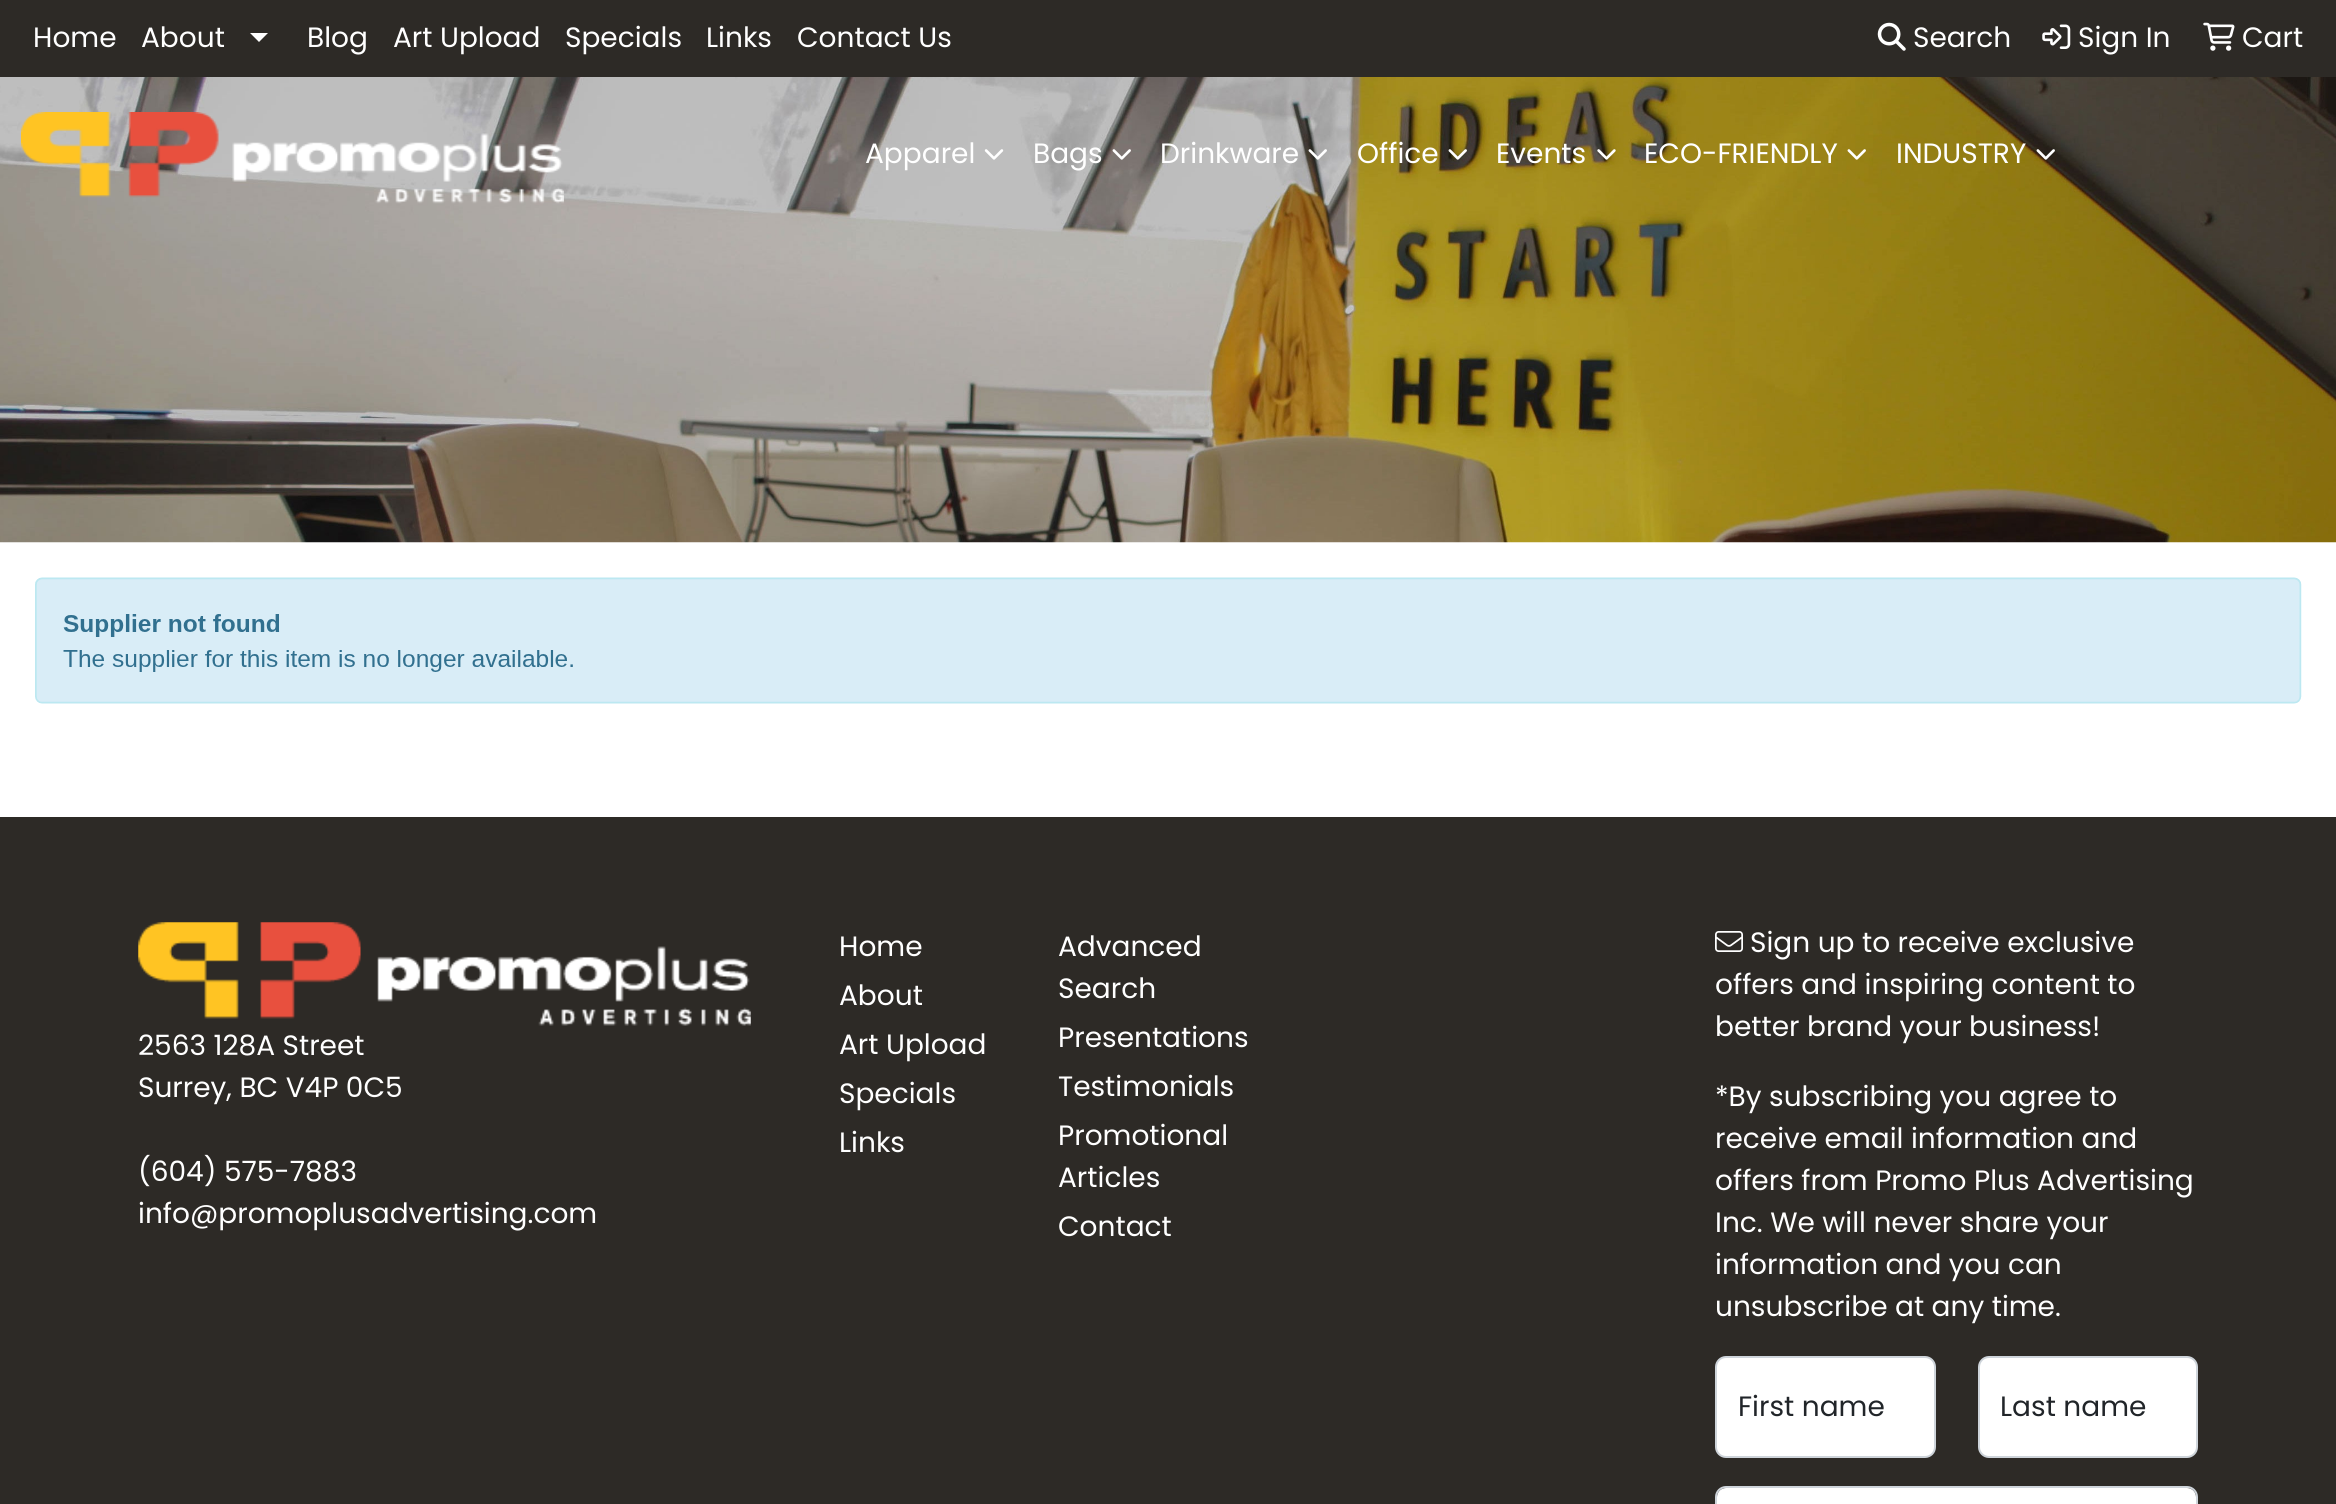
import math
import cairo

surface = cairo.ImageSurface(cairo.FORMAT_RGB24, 2336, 1504)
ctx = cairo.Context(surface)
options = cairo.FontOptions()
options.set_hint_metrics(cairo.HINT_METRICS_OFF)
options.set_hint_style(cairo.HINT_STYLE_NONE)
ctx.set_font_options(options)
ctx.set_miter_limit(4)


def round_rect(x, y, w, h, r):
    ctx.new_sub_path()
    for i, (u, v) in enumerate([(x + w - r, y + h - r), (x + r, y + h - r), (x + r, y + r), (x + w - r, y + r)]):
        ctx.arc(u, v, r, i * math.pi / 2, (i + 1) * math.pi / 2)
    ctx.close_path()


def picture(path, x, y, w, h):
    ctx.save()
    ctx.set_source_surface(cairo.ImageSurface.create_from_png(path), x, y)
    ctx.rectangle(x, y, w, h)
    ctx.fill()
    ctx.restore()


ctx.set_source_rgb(1, 1, 1)
ctx.paint()
ctx.set_source_rgb(0.176, 0.165, 0.149)
ctx.rectangle(0, 0, 2336, 77)
ctx.fill()
ctx.select_font_face("Poppins")
ctx.set_font_size(28)
ctx.set_source_rgb(1, 1, 1)
ctx.move_to(33, 47)
ctx.show_text("Home")
ctx.move_to(141, 47)
ctx.show_text("About")
ctx.new_path()
ctx.move_to(250, 33)
ctx.line_to(268, 33)
ctx.line_to(259, 42)
ctx.close_path()
ctx.fill()
ctx.move_to(307, 47)
ctx.show_text("Blog")
ctx.move_to(393, 47)
ctx.show_text("Art Upload")
ctx.move_to(565, 47)
ctx.show_text("Specials")
ctx.move_to(706, 47)
ctx.show_text("Links")
ctx.move_to(797, 47)
ctx.show_text("Contact Us")
picture("img1.png", 1877, 22, 29, 29)
ctx.move_to(1913, 47)
ctx.show_text("Search")
picture("img2.png", 2042, 24, 29, 25)
ctx.move_to(2078, 47)
ctx.show_text("Sign In")
picture("img3.png", 2203, 22, 32, 29)
ctx.move_to(2242, 47)
ctx.show_text("Cart")
picture("img12.png", 0, 77, 2336, 466)
picture("img4.png", 21, 112, 543, 92)
ctx.move_to(865, 163)
ctx.show_text("Apparel")
picture("img5.png", 984, 149, 20, 11)
ctx.move_to(1033, 163)
ctx.show_text("Bags")
picture("img6.png", 1112, 149, 19, 11)
ctx.move_to(1160, 163)
ctx.show_text("Drinkware")
picture("img7.png", 1308, 149, 19, 11)
ctx.move_to(1357, 163)
ctx.show_text("Office")
picture("img8.png", 1448, 149, 19, 11)
ctx.move_to(1496, 163)
ctx.show_text("Events")
picture("img9.png", 1597, 149, 19, 11)
ctx.move_to(1644, 163)
ctx.show_text("ECO-FRIENDLY")
picture("img10.png", 1847, 149, 19, 11)
ctx.move_to(1896, 163)
ctx.show_text("INDUSTRY")
picture("img11.png", 2036, 149, 19, 11)
picture("img13.png", 35, 577, 2267, 127)
ctx.set_source_rgb(0.176, 0.165, 0.149)
ctx.rectangle(0, 817, 2336, 687)
ctx.fill()
picture("img14.png", 138, 922, 613, 104)
ctx.set_source_rgb(1, 1, 1)
ctx.move_to(138, 1055)
ctx.show_text("2563 128A Street")
ctx.move_to(138, 1097)
ctx.show_text("Surrey, BC V4P 0C5")
ctx.move_to(138, 1181)
ctx.show_text("(604) 575-7883")
ctx.move_to(138, 1223)
ctx.show_text("info@promoplusadvertising.com")
ctx.move_to(839, 956)
ctx.show_text("Home")
ctx.move_to(839, 1005)
ctx.show_text("About")
ctx.move_to(839, 1054)
ctx.show_text("Art Upload")
ctx.move_to(839, 1103)
ctx.show_text("Specials")
ctx.move_to(839, 1152)
ctx.show_text("Links")
ctx.move_to(1058, 956)
ctx.show_text("Advanced")
ctx.move_to(1058, 998)
ctx.show_text("Search")
ctx.move_to(1058, 1047)
ctx.show_text("Presentations")
ctx.move_to(1058, 1096)
ctx.show_text("Testimonials")
ctx.move_to(1058, 1145)
ctx.show_text("Promotional")
ctx.move_to(1058, 1187)
ctx.show_text("Articles")
ctx.move_to(1058, 1236)
ctx.show_text("Contact")
picture("img15.png", 1715, 931, 28, 21)
ctx.move_to(1750, 952)
ctx.show_text("Sign up to receive exclusive")
ctx.move_to(1715, 994)
ctx.show_text("offers and inspiring content to")
ctx.move_to(1715, 1036)
ctx.show_text("better brand your business!")
ctx.move_to(1715, 1106)
ctx.show_text("*By subscribing you agree to")
ctx.move_to(1715, 1148)
ctx.show_text("receive email information and")
ctx.move_to(1715, 1190)
ctx.show_text("offers from Promo Plus Advertising")
ctx.move_to(1715, 1232)
ctx.show_text("Inc. We will never share your")
ctx.move_to(1715, 1274)
ctx.show_text("information and you can")
ctx.move_to(1715, 1316)
ctx.show_text("unsubscribe at any time.")
round_rect(1716, 1357, 219, 100, 10)
ctx.fill_preserve()
ctx.set_source_rgb(0.808, 0.831, 0.855)
ctx.stroke()
ctx.set_source_rgb(0.129, 0.145, 0.161)
ctx.move_to(1738, 1416)
ctx.show_text("First name")
ctx.set_source_rgb(1, 1, 1)
round_rect(1979, 1357, 218, 100, 10)
ctx.fill_preserve()
ctx.set_source_rgb(0.808, 0.831, 0.855)
ctx.stroke()
ctx.set_source_rgb(0.129, 0.145, 0.161)
ctx.move_to(2000, 1416)
ctx.show_text("Last name")
ctx.set_source_rgb(1, 1, 1)
round_rect(1717, 1488, 479, 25, 9)
ctx.fill()
round_rect(1716, 1487, 481, 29, 10)
ctx.set_source_rgb(0.808, 0.831, 0.855)
ctx.stroke()
surface.write_to_png("page.png")
